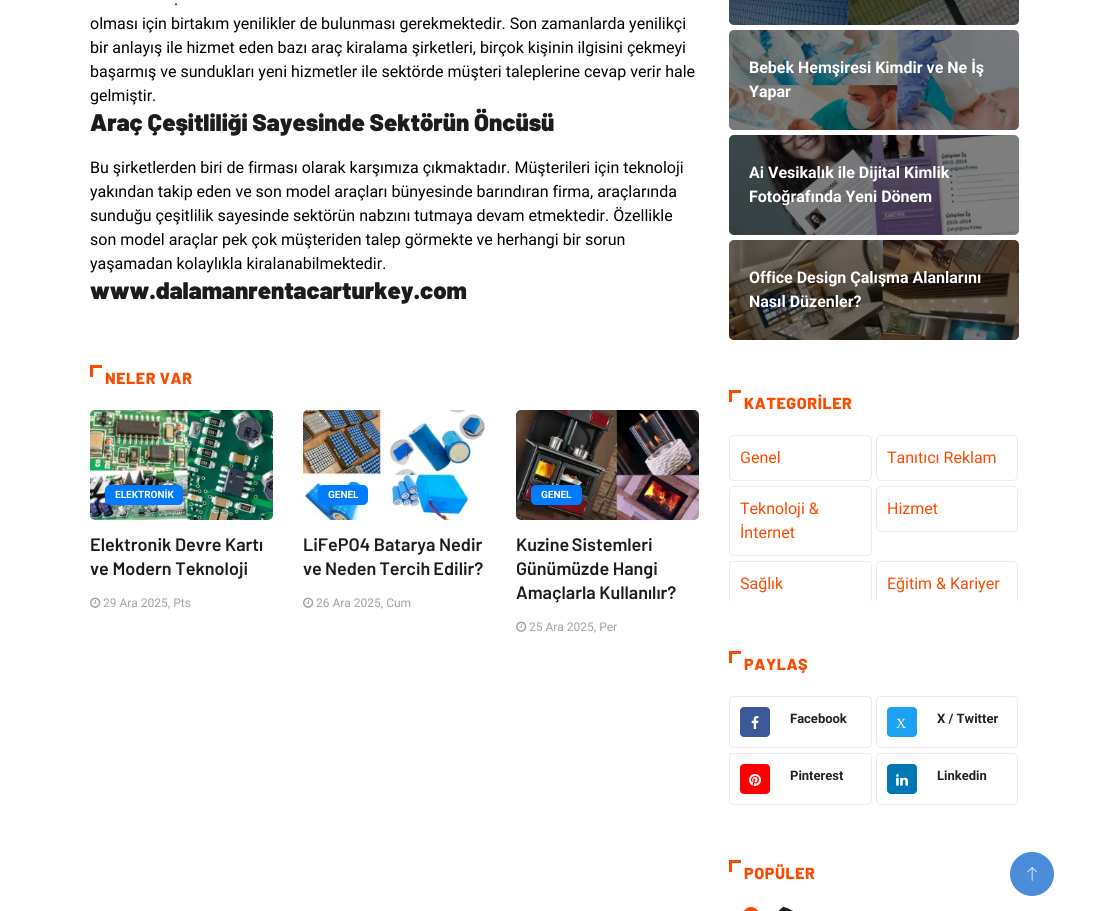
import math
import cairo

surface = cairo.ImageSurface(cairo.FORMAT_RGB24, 1109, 911)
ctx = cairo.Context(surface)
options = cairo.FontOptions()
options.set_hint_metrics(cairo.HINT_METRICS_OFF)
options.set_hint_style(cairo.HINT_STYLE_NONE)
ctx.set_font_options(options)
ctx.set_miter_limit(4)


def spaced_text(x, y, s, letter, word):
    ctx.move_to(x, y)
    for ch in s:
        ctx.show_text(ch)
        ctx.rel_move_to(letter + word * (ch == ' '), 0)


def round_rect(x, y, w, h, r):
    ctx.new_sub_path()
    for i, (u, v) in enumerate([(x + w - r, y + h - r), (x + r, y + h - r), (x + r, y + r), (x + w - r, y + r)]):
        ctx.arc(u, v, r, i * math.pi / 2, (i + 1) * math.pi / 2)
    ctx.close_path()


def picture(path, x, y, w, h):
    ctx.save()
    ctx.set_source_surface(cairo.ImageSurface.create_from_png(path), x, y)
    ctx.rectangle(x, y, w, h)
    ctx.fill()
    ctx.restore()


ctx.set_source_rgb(1, 1, 1)
ctx.paint()
ctx.select_font_face("Roboto")
ctx.set_font_size(16)
ctx.set_source_rgb(0, 0, 0)
ctx.move_to(174, 5)
ctx.show_text(".")
ctx.move_to(90, 29)
ctx.show_text("olması için birtakım yenilikler de bulunması gerekmektedir. Son zamanlarda yenilikçi")
ctx.move_to(90, 53)
ctx.show_text("bir anlayış ile hizmet eden bazı araç kiralama şirketleri, birçok kişinin ilgisini çekmeyi")
ctx.move_to(90, 77)
ctx.show_text("başarmış ve sundukları yeni hizmetler ile sektörde müşteri taleplerine cevap verir hale")
ctx.move_to(90, 101)
ctx.show_text("gelmiştir.")
ctx.select_font_face("Barlow Black")
ctx.set_font_size(24)
ctx.set_source_rgb(0.11, 0.11, 0.11)
ctx.move_to(90, 131)
ctx.show_text("Araç Çeşitliliği Sayesinde Sektörün Öncüsü")
ctx.select_font_face("Roboto")
ctx.set_font_size(16)
ctx.set_source_rgb(0, 0, 0)
ctx.move_to(90, 173)
ctx.show_text("Bu şirketlerden biri de firması olarak karşımıza çıkmaktadır. Müşterileri için teknoloji")
ctx.move_to(90, 197)
ctx.show_text("yakından takip eden ve son model araçları bünyesinde barındıran firma, araçlarında")
ctx.move_to(90, 221)
ctx.show_text("sunduğu çeşitlilik sayesinde sektörün nabzını tutmaya devam etmektedir. Özellikle")
ctx.move_to(90, 245)
ctx.show_text("son model araçlar pek çok müşteriden talep görmekte ve herhangi bir sorun")
ctx.move_to(90, 269)
ctx.show_text("yaşamadan kolaylıkla kiralanabilmektedir.")
ctx.select_font_face("Barlow Black")
ctx.set_font_size(24)
ctx.set_source_rgb(0.11, 0.11, 0.11)
ctx.move_to(90, 299)
ctx.show_text("www.dalamanrentacarturkey.com")
ctx.set_source_rgb(0.988, 0.29, 0)
ctx.rectangle(90, 365, 3, 12)
ctx.fill()
ctx.rectangle(90, 365, 12, 3)
ctx.fill()
ctx.select_font_face("Barlow ExtraBold")
ctx.set_font_size(16)
spaced_text(105, 384, "NELER VAR", 0.6, 0)
picture("img1.png", 90, 410, 183, 110)
ctx.set_source_rgb(0, 0.482, 1)
round_rect(105, 485, 78, 20, 5)
ctx.fill()
ctx.select_font_face("Roboto", cairo.FONT_SLANT_NORMAL, cairo.FONT_WEIGHT_BOLD)
ctx.set_font_size(10)
ctx.set_source_rgb(1, 1, 1)
ctx.move_to(115, 498)
ctx.show_text("ELEKTRONİK")
ctx.select_font_face("Barlow SemiBold")
ctx.set_font_size(18)
ctx.set_source_rgb(0.11, 0.11, 0.11)
ctx.move_to(90, 551)
ctx.show_text("Elektronik Devre Kartı")
ctx.move_to(90, 575)
ctx.show_text("ve Modern Teknoloji")
picture("img2.png", 90, 597, 11, 11)
ctx.select_font_face("Roboto")
ctx.set_font_size(12)
ctx.set_source_rgb(0.639, 0.639, 0.639)
ctx.move_to(103, 607)
ctx.show_text("29 Ara 2025, Pts")
picture("img3.png", 303, 410, 182, 110)
ctx.set_source_rgb(0, 0.482, 1)
round_rect(318, 485, 50, 20, 5)
ctx.fill()
ctx.select_font_face("Roboto", cairo.FONT_SLANT_NORMAL, cairo.FONT_WEIGHT_BOLD)
ctx.set_font_size(10)
ctx.set_source_rgb(1, 1, 1)
ctx.move_to(328, 498)
ctx.show_text("GENEL")
ctx.select_font_face("Barlow SemiBold")
ctx.set_font_size(18)
ctx.set_source_rgb(0.11, 0.11, 0.11)
ctx.move_to(303, 551)
ctx.show_text("LiFePO4 Batarya Nedir")
spaced_text(303, 575, "ve Neden Tercih Edilir?", 0, -0.5)
picture("img2.png", 303, 597, 11, 11)
ctx.select_font_face("Roboto")
ctx.set_font_size(12)
ctx.set_source_rgb(0.639, 0.639, 0.639)
ctx.move_to(316, 607)
ctx.show_text("26 Ara 2025, Cum")
picture("img4.png", 516, 410, 183, 110)
ctx.set_source_rgb(0, 0.482, 1)
round_rect(531, 485, 51, 20, 5)
ctx.fill()
ctx.select_font_face("Roboto", cairo.FONT_SLANT_NORMAL, cairo.FONT_WEIGHT_BOLD)
ctx.set_font_size(10)
ctx.set_source_rgb(1, 1, 1)
ctx.move_to(541, 498)
ctx.show_text("GENEL")
ctx.select_font_face("Barlow SemiBold")
ctx.set_font_size(18)
ctx.set_source_rgb(0.11, 0.11, 0.11)
spaced_text(516, 551, "Kuzine Sistemleri", 0, -1)
ctx.move_to(516, 575)
ctx.show_text("Günümüzde Hangi")
ctx.move_to(516, 599)
ctx.show_text("Amaçlarla Kullanılır?")
picture("img2.png", 516, 621, 11, 11)
ctx.select_font_face("Roboto")
ctx.set_font_size(12)
ctx.set_source_rgb(0.639, 0.639, 0.639)
ctx.move_to(529, 631)
ctx.show_text("25 Ara 2025, Per")
picture("img5.png", 729, 0, 290, 25)
ctx.set_source_rgba(0, 0, 0, 0.5)
round_rect(729, -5, 290, 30, 5)
ctx.fill()
picture("img6.png", 729, 30, 290, 100)
round_rect(729, 30, 290, 100, 5)
ctx.fill()
ctx.select_font_face("Roboto", cairo.FONT_SLANT_NORMAL, cairo.FONT_WEIGHT_BOLD)
ctx.set_font_size(16)
ctx.set_source_rgb(1, 1, 1)
ctx.move_to(749, 73)
ctx.show_text("Bebek Hemşiresi Kimdir ve Ne İş")
ctx.move_to(749, 97)
ctx.show_text("Yapar")
picture("img7.png", 729, 135, 290, 100)
ctx.set_source_rgba(0, 0, 0, 0.5)
round_rect(729, 135, 290, 100, 5)
ctx.fill()
ctx.set_source_rgb(1, 1, 1)
ctx.move_to(749, 178)
ctx.show_text("Ai Vesikalık ile Dijital Kimlik")
ctx.move_to(749, 202)
ctx.show_text("Fotoğrafında Yeni Dönem")
picture("img8.png", 729, 240, 290, 100)
ctx.set_source_rgba(0, 0, 0, 0.5)
round_rect(729, 240, 290, 100, 5)
ctx.fill()
ctx.set_source_rgb(1, 1, 1)
ctx.move_to(749, 283)
ctx.show_text("Office Design Çalışma Alanlarını")
ctx.move_to(749, 307)
ctx.show_text("Nasıl Düzenler?")
ctx.set_source_rgb(0.988, 0.29, 0)
ctx.rectangle(729, 390, 3, 12)
ctx.fill()
ctx.rectangle(729, 390, 12, 3)
ctx.fill()
ctx.select_font_face("Barlow ExtraBold")
spaced_text(744, 409, "KATEGORİLER", 0.6, 0)
round_rect(729.5, 435.5, 142, 45, 4.5)
ctx.set_source_rgb(0.918, 0.918, 0.918)
ctx.set_line_width(1)
ctx.stroke()
ctx.select_font_face("Roboto")
ctx.set_source_rgb(0.988, 0.29, 0)
ctx.move_to(740, 463)
ctx.show_text("Genel")
round_rect(876.5, 435.5, 141, 45, 4.5)
ctx.set_source_rgb(0.918, 0.918, 0.918)
ctx.stroke()
ctx.set_source_rgb(0.988, 0.29, 0)
ctx.move_to(887, 463)
ctx.show_text("Tanıtıcı Reklam")
round_rect(729.5, 486.5, 142, 69, 4.5)
ctx.set_source_rgb(0.918, 0.918, 0.918)
ctx.stroke()
ctx.set_source_rgb(0.988, 0.29, 0)
ctx.move_to(740, 514)
ctx.show_text("Teknoloji &")
ctx.move_to(740, 538)
ctx.show_text("İnternet")
round_rect(876.5, 486.5, 141, 45, 4.5)
ctx.set_source_rgb(0.918, 0.918, 0.918)
ctx.stroke()
ctx.set_source_rgb(0.988, 0.29, 0)
ctx.move_to(887, 514)
ctx.show_text("Hizmet")
ctx.save()
ctx.rectangle(729, 435, 290, 166)
ctx.clip()
round_rect(729.5, 561.5, 142, 45, 4.5)
ctx.set_source_rgb(0.918, 0.918, 0.918)
ctx.stroke()
ctx.restore()
ctx.move_to(740, 589)
ctx.show_text("Sağlık")
ctx.save()
ctx.rectangle(729, 435, 290, 166)
ctx.clip()
round_rect(876.5, 561.5, 141, 45, 4.5)
ctx.set_source_rgb(0.918, 0.918, 0.918)
ctx.stroke()
ctx.restore()
ctx.move_to(887, 589)
ctx.show_text("Eğitim & Kariyer")
ctx.rectangle(729, 651, 3, 12)
ctx.fill()
ctx.rectangle(729, 651, 12, 3)
ctx.fill()
ctx.select_font_face("Barlow ExtraBold")
spaced_text(744, 670, "PAYLAŞ", 0.6, 0)
round_rect(729.5, 696.5, 142, 51, 4.5)
ctx.set_source_rgb(0.918, 0.918, 0.918)
ctx.stroke()
ctx.set_source_rgb(0.231, 0.349, 0.596)
round_rect(740, 707, 30, 30, 4)
ctx.fill()
picture("img9.png", 751, 716, 8, 13)
ctx.select_font_face("Roboto", cairo.FONT_SLANT_NORMAL, cairo.FONT_WEIGHT_BOLD)
ctx.set_font_size(13)
ctx.set_source_rgb(0.133, 0.133, 0.133)
ctx.move_to(790, 723)
ctx.show_text("Facebook")
round_rect(876.5, 696.5, 141, 51, 4.5)
ctx.set_source_rgb(0.918, 0.918, 0.918)
ctx.stroke()
ctx.set_source_rgb(0.114, 0.631, 0.949)
round_rect(887, 707, 30, 30, 4)
ctx.fill()
ctx.select_font_face("Liberation Serif")
ctx.set_font_size(14)
ctx.set_source_rgb(1, 1, 1)
ctx.move_to(896, 728)
ctx.show_text("X")
ctx.select_font_face("Roboto", cairo.FONT_SLANT_NORMAL, cairo.FONT_WEIGHT_BOLD)
ctx.set_font_size(13)
ctx.set_source_rgb(0.133, 0.133, 0.133)
ctx.move_to(937, 723)
ctx.show_text("X / Twitter")
round_rect(729.5, 753.5, 142, 51, 4.5)
ctx.set_source_rgb(0.918, 0.918, 0.918)
ctx.stroke()
ctx.set_source_rgb(1, 0, 0)
round_rect(740, 764, 30, 30, 4)
ctx.fill()
picture("img10.png", 749, 774, 12, 12)
ctx.set_source_rgb(0.133, 0.133, 0.133)
ctx.move_to(790, 780)
ctx.show_text("Pinterest")
round_rect(876.5, 753.5, 141, 51, 4.5)
ctx.set_source_rgb(0.918, 0.918, 0.918)
ctx.stroke()
ctx.set_source_rgb(0, 0.467, 0.71)
round_rect(887, 764, 30, 30, 4)
ctx.fill()
picture("img11.png", 896, 774, 12, 12)
ctx.set_source_rgb(0.133, 0.133, 0.133)
ctx.move_to(937, 780)
ctx.show_text("Linkedin")
ctx.set_source_rgb(0.988, 0.29, 0)
ctx.rectangle(729, 860, 3, 12)
ctx.fill()
ctx.rectangle(729, 860, 12, 3)
ctx.fill()
ctx.select_font_face("Barlow ExtraBold")
ctx.set_font_size(16)
spaced_text(744, 879, "POPÜLER", 0.6, 0)
round_rect(742, 906, 18, 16, 9)
ctx.fill_preserve()
ctx.set_source_rgb(1, 1, 1)
ctx.set_line_width(2)
ctx.stroke()
picture("img12.png", 778, 906, 15, 5)
ctx.set_source_rgb(0.298, 0.549, 0.859)
ctx.arc(1032, 874, 22, 0, 2 * math.pi)
ctx.fill()
picture("img13.png", 1027, 867, 10, 14)
surface.write_to_png("page.png")
